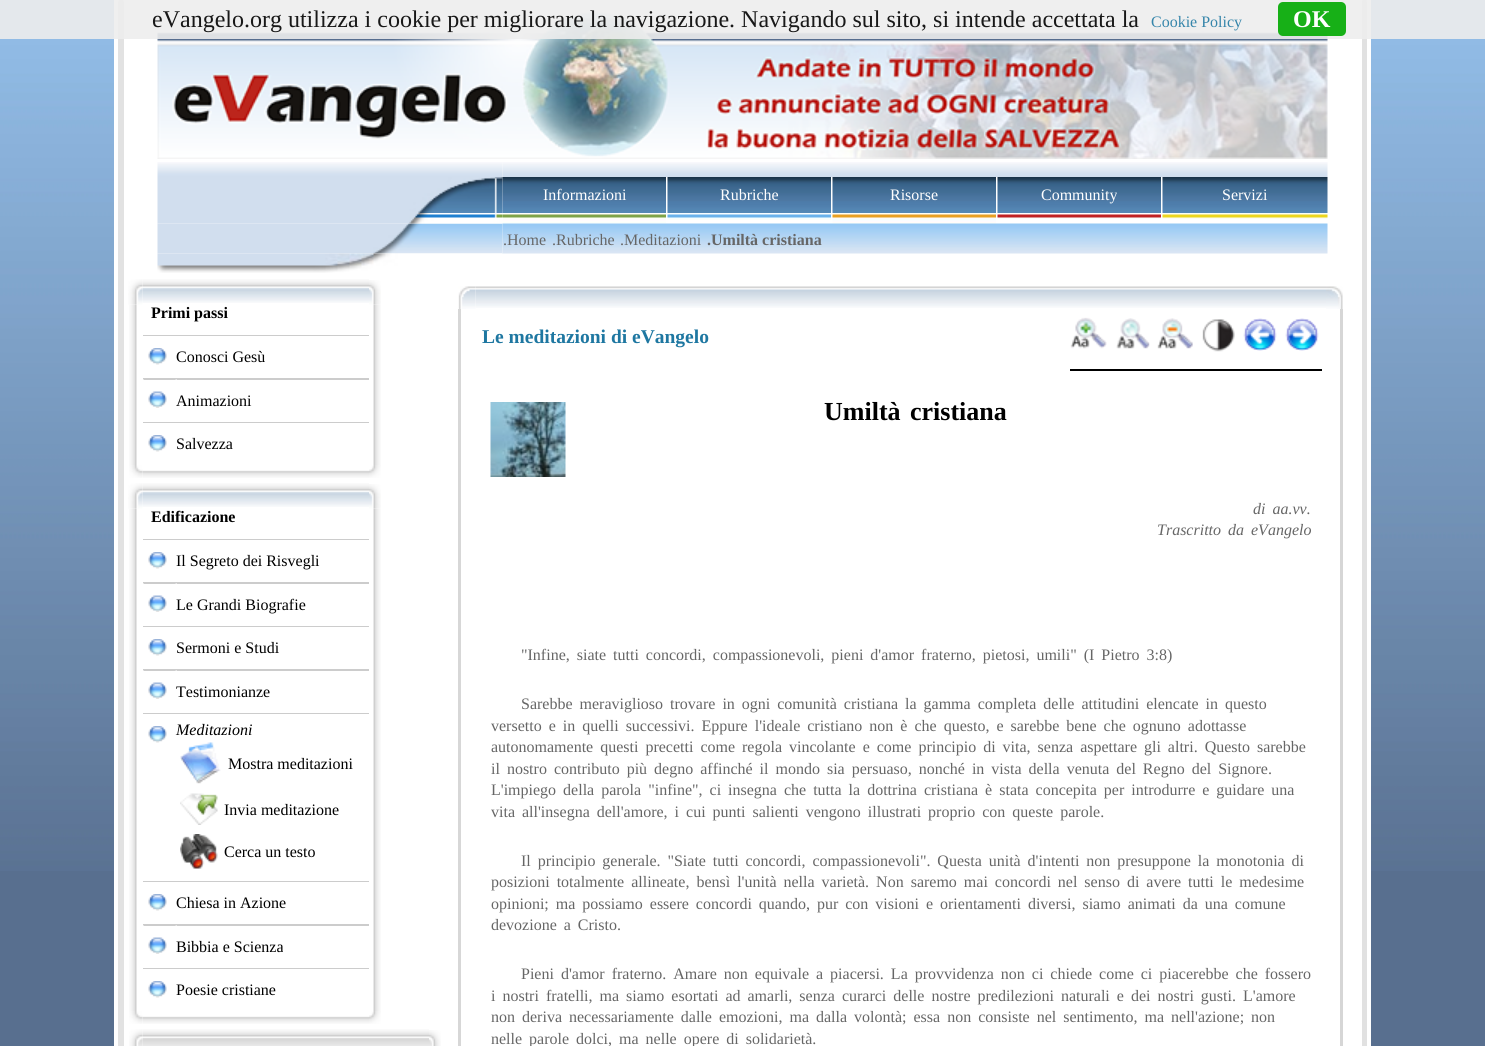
import math
import cairo

surface = cairo.ImageSurface(cairo.FORMAT_RGB24, 1485, 1046)
ctx = cairo.Context(surface)
options = cairo.FontOptions()
options.set_hint_metrics(cairo.HINT_METRICS_OFF)
options.set_hint_style(cairo.HINT_STYLE_NONE)
ctx.set_font_options(options)
ctx.set_miter_limit(4)


def spaced_text(x, y, s, letter, word):
    ctx.move_to(x, y)
    for ch in s:
        ctx.show_text(ch)
        ctx.rel_move_to(letter + word * (ch == ' '), 0)


def round_rect(x, y, w, h, r):
    ctx.new_sub_path()
    for i, (u, v) in enumerate([(x + w - r, y + h - r), (x + r, y + h - r), (x + r, y + r), (x + w - r, y + r)]):
        ctx.arc(u, v, r, i * math.pi / 2, (i + 1) * math.pi / 2)
    ctx.close_path()


def picture(path, x, y, w, h):
    ctx.save()
    ctx.set_source_surface(cairo.ImageSurface.create_from_png(path), x, y)
    ctx.rectangle(x, y, w, h)
    ctx.fill()
    ctx.restore()


ctx.set_source_rgb(1, 1, 1)
ctx.paint()
ctx.set_source_rgb(0.569, 0.733, 0.898)
ctx.rectangle(0, 0, 114, 35)
ctx.fill()
picture("img1.png", 0, 35, 114, 836)
ctx.set_source_rgb(0.886, 0.886, 0.886)
ctx.rectangle(118, 0, 6, 1046)
ctx.fill()
picture("img2.png", 118, 0, 6, 2)
picture("img3.png", 157, 12, 1171, 147)
ctx.set_source_rgb(0.882, 0.882, 0.882)
ctx.rectangle(1362, 0, 5, 1046)
ctx.fill()
picture("img48.png", 1362, 0, 5, 2)
ctx.set_source_rgb(0.569, 0.733, 0.898)
ctx.rectangle(1371, 0, 114, 35)
ctx.fill()
picture("img49.png", 1371, 35, 114, 836)
ctx.set_source_rgba(0.933, 0.933, 0.933, 0.9)
ctx.rectangle(0, 0, 1485, 39)
ctx.fill()
ctx.select_font_face("Liberation Serif")
ctx.set_font_size(24)
ctx.set_source_rgb(0.094, 0.094, 0.094)
ctx.move_to(152, 27)
ctx.show_text("eVangelo.org utilizza i cookie per migliorare la navigazione. Navigando sul sito, si intende accettata la")
ctx.set_font_size(16)
ctx.set_source_rgb(0.208, 0.522, 0.667)
ctx.move_to(1151, 27)
ctx.show_text("Cookie Policy")
ctx.set_source_rgba(0, 0.667, 0, 0.9)
round_rect(1278, 2, 68, 34, 5)
ctx.fill()
ctx.select_font_face("Liberation Serif", cairo.FONT_SLANT_NORMAL, cairo.FONT_WEIGHT_BOLD)
ctx.set_font_size(24)
ctx.set_source_rgb(1, 1, 1)
ctx.move_to(1293, 27)
ctx.show_text("OK")
ctx.set_source_rgb(0.345, 0.435, 0.561)
ctx.rectangle(0, 871, 114, 175)
ctx.fill()
picture("img4.png", 157, 162, 346, 15)
picture("img5.png", 502, 162, 826, 15)
picture("img6.png", 157, 177, 346, 36)
picture("img7.png", 502, 177, 164, 36)
ctx.select_font_face("Liberation Serif")
ctx.set_font_size(16)
ctx.set_source_rgb(1, 1, 1)
ctx.move_to(543, 200)
ctx.show_text("Informazioni")
picture("img8.png", 667, 177, 164, 36)
ctx.move_to(720, 200)
ctx.show_text("Rubriche")
picture("img8.png", 832, 177, 164, 36)
ctx.move_to(890, 200)
ctx.show_text("Risorse")
picture("img8.png", 997, 177, 164, 36)
ctx.move_to(1041, 200)
ctx.show_text("Community")
picture("img9.png", 1162, 177, 166, 36)
ctx.move_to(1222, 200)
ctx.show_text("Servizi")
picture("img11.png", 502, 214, 164, 9)
picture("img16.png", 157, 223, 346, 31)
picture("img13.png", 832, 213, 164, 11)
picture("img17.png", 502, 223, 826, 31)
picture("img10.png", 157, 213, 346, 11)
picture("img12.png", 667, 213, 164, 7)
picture("img14.png", 997, 214, 164, 5)
picture("img15.png", 1162, 213, 166, 6)
ctx.set_source_rgb(0.4, 0.4, 0.4)
ctx.move_to(503, 245)
ctx.show_text(".Home")
ctx.move_to(552, 245)
ctx.show_text(".Rubriche")
ctx.move_to(620, 245)
ctx.show_text(".Meditazioni")
ctx.select_font_face("Liberation Serif", cairo.FONT_SLANT_NORMAL, cairo.FONT_WEIGHT_BOLD)
ctx.move_to(707, 245)
ctx.show_text(".Umiltà cristiana")
picture("img18.png", 157, 253, 345, 20)
picture("img20.png", 142, 279, 227, 24)
picture("img22.png", 129, 304, 8, 161)
picture("img19.png", 128, 279, 15, 26)
picture("img26.png", 373, 304, 8, 161)
picture("img21.png", 369, 280, 12, 25)
ctx.set_source_rgb(0, 0, 0)
ctx.move_to(151, 318)
ctx.show_text("Primi passi")
ctx.set_source_rgb(0.8, 0.8, 0.8)
ctx.rectangle(143, 335, 226, 1)
ctx.fill()
picture("img23.png", 148, 348, 19, 17)
ctx.select_font_face("Liberation Serif")
ctx.set_source_rgb(0, 0, 0)
ctx.move_to(176, 362)
ctx.show_text("Conosci Gesù")
ctx.set_source_rgb(0.8, 0.8, 0.8)
ctx.rectangle(143, 378, 226, 2)
ctx.fill()
ctx.set_source_rgb(0.902, 0.902, 0.902)
ctx.rectangle(143, 379, 1, 1)
ctx.fill()
picture("img24.png", 175, 379, 2, 1)
picture("img25.png", 148, 391, 19, 17)
ctx.set_source_rgb(0, 0, 0)
ctx.move_to(176, 406)
ctx.show_text("Animazioni")
ctx.set_source_rgb(0.8, 0.8, 0.8)
ctx.rectangle(143, 422, 226, 1)
ctx.fill()
picture("img23.png", 148, 435, 19, 17)
ctx.set_source_rgb(0, 0, 0)
ctx.move_to(176, 449)
ctx.show_text("Salvezza")
picture("img28.png", 142, 470, 227, 8)
picture("img27.png", 129, 465, 14, 13)
picture("img29.png", 369, 465, 12, 13)
picture("img20.png", 142, 483, 227, 24)
picture("img30.png", 129, 508, 8, 503)
picture("img19.png", 128, 483, 15, 26)
picture("img34.png", 373, 508, 8, 503)
picture("img21.png", 369, 484, 12, 25)
ctx.select_font_face("Liberation Serif", cairo.FONT_SLANT_NORMAL, cairo.FONT_WEIGHT_BOLD)
ctx.move_to(151, 522)
ctx.show_text("Edificazione")
ctx.set_source_rgb(0.8, 0.8, 0.8)
ctx.rectangle(143, 539, 226, 1)
ctx.fill()
picture("img23.png", 148, 552, 19, 17)
ctx.select_font_face("Liberation Serif")
ctx.set_source_rgb(0, 0, 0)
ctx.move_to(176, 566)
ctx.show_text("Il Segreto dei Risvegli")
ctx.set_source_rgb(0.8, 0.8, 0.8)
ctx.rectangle(143, 582, 226, 2)
ctx.fill()
ctx.set_source_rgb(0.902, 0.902, 0.902)
ctx.rectangle(143, 583, 1, 1)
ctx.fill()
picture("img24.png", 175, 583, 2, 1)
picture("img25.png", 148, 595, 19, 17)
ctx.set_source_rgb(0, 0, 0)
ctx.move_to(176, 610)
ctx.show_text("Le Grandi Biografie")
ctx.set_source_rgb(0.8, 0.8, 0.8)
ctx.rectangle(143, 626, 226, 1)
ctx.fill()
picture("img23.png", 148, 639, 19, 17)
ctx.set_source_rgb(0, 0, 0)
ctx.move_to(176, 653)
ctx.show_text("Sermoni e Studi")
ctx.set_source_rgb(0.8, 0.8, 0.8)
ctx.rectangle(143, 669, 226, 2)
ctx.fill()
ctx.set_source_rgb(0.902, 0.902, 0.902)
ctx.rectangle(143, 670, 1, 1)
ctx.fill()
picture("img24.png", 175, 670, 2, 1)
picture("img25.png", 148, 682, 19, 17)
ctx.set_source_rgb(0, 0, 0)
ctx.move_to(176, 697)
ctx.show_text("Testimonianze")
ctx.set_source_rgb(0.8, 0.8, 0.8)
ctx.rectangle(143, 713, 226, 1)
ctx.fill()
picture("img23.png", 148, 726, 19, 17)
ctx.select_font_face("Liberation Serif", cairo.FONT_SLANT_ITALIC)
ctx.set_source_rgb(0, 0, 0)
ctx.move_to(176, 735)
ctx.show_text("Meditazioni")
picture("img31.png", 180, 742, 41, 42)
ctx.select_font_face("Liberation Serif")
ctx.move_to(228, 769)
ctx.show_text("Mostra meditazioni")
picture("img32.png", 180, 793, 38, 32)
ctx.move_to(224, 815)
ctx.show_text("Invia meditazione")
picture("img33.png", 180, 834, 38, 35)
ctx.move_to(224, 857)
ctx.show_text("Cerca un testo")
ctx.set_source_rgb(0.8, 0.8, 0.8)
ctx.rectangle(143, 881, 226, 1)
ctx.fill()
picture("img23.png", 148, 894, 19, 17)
ctx.set_source_rgb(0, 0, 0)
ctx.move_to(176, 908)
ctx.show_text("Chiesa in Azione")
ctx.set_source_rgb(0.8, 0.8, 0.8)
ctx.rectangle(143, 924, 226, 2)
ctx.fill()
ctx.set_source_rgb(0.902, 0.902, 0.902)
ctx.rectangle(143, 925, 1, 1)
ctx.fill()
picture("img24.png", 175, 925, 2, 1)
picture("img25.png", 148, 937, 19, 17)
ctx.set_source_rgb(0, 0, 0)
ctx.move_to(176, 952)
ctx.show_text("Bibbia e Scienza")
ctx.set_source_rgb(0.8, 0.8, 0.8)
ctx.rectangle(143, 968, 226, 1)
ctx.fill()
picture("img23.png", 148, 981, 19, 17)
ctx.set_source_rgb(0, 0, 0)
ctx.move_to(176, 995)
ctx.show_text("Poesie cristiane")
picture("img28.png", 142, 1016, 227, 8)
picture("img27.png", 129, 1011, 14, 13)
picture("img29.png", 369, 1011, 12, 13)
picture("img36.png", 142, 1029, 287, 17)
picture("img35.png", 129, 1029, 14, 17)
picture("img37.png", 429, 1030, 12, 16)
picture("img39.png", 475, 286, 851, 22)
picture("img38.png", 458, 286, 18, 23)
picture("img40.png", 1326, 286, 17, 23)
ctx.set_source_rgb(0.843, 0.843, 0.843)
ctx.rectangle(458, 309, 3, 737)
ctx.fill()
ctx.select_font_face("Liberation Serif", cairo.FONT_SLANT_NORMAL, cairo.FONT_WEIGHT_BOLD)
ctx.set_font_size(19.5)
ctx.set_source_rgb(0.118, 0.467, 0.631)
ctx.move_to(482, 343)
ctx.show_text("Le meditazioni di eVangelo")
picture("img41.png", 1070, 317, 37, 32)
picture("img42.png", 1116, 318, 34, 31)
picture("img43.png", 1157, 318, 36, 31)
picture("img44.png", 1202, 319, 33, 33)
picture("img45.png", 1243, 318, 34, 33)
picture("img46.png", 1285, 318, 34, 33)
ctx.set_source_rgb(0, 0, 0)
ctx.rectangle(1070, 369, 252, 2)
ctx.fill()
picture("img47.png", 490, 402, 76, 75)
ctx.set_font_size(26)
spaced_text(824, 420, "Umiltà cristiana", 0, 3)
ctx.select_font_face("Liberation Serif", cairo.FONT_SLANT_ITALIC)
ctx.set_font_size(16)
ctx.set_source_rgb(0.4, 0.4, 0.4)
spaced_text(1253, 514, "di aa.vv.", 0, 3)
ctx.move_to(1157, 535)
ctx.show_text("Trascritto")
spaced_text(1228, 535, "da eVangelo", 0, 3)
ctx.select_font_face("Liberation Serif")
spaced_text(521, 660, "\"Infine, siate tutti concordi, compassionevoli, pieni d'amor fraterno, pietosi, umili\" (I Pietro 3:8)", 0, 3)
spaced_text(521, 709, "Sarebbe meraviglioso trovare in ogni comunità cristiana la gamma completa delle attitudini elencate in questo", 0, 3)
spaced_text(491, 731, "versetto e in quelli successivi. Eppure l'ideale cristiano non è che questo, e sarebbe bene che ognuno adottasse", 0, 3)
spaced_text(491, 752, "autonomamente questi precetti come regola vincolante e come principio di vita, senza aspettare gli altri. Questo sarebbe", 0, 3)
spaced_text(491, 774, "il nostro contributo più degno affinché il mondo sia persuaso, nonché in vista della venuta del Regno del Signore.", 0, 3)
spaced_text(491, 795, "L'impiego della parola \"infine\", ci insegna che tutta la dottrina cristiana è stata concepita per introdurre e guidare una", 0, 3)
spaced_text(491, 817, "vita all'insegna dell'amore, i cui punti salienti vengono illustrati proprio con queste parole.", 0, 3)
spaced_text(521, 866, "Il principio generale. \"Siate tutti concordi, compassionevoli\". Questa unità d'intenti non presuppone la monotonia di", 0, 2.9)
spaced_text(491, 887, "posizioni totalmente allineate, bensì l'unità nella varietà. Non saremo mai concordi nel senso di avere tutti le medesime", 0, 3)
spaced_text(491, 909, "opinioni; ma possiamo essere concordi quando, pur con visioni e orientamenti diversi, siamo animati da una comune", 0, 3)
spaced_text(491, 930, "devozione a Cristo.", 0, 3)
spaced_text(521, 979, "Pieni d'amor fraterno. Amare non equivale a piacersi. La provvidenza non ci chiede come ci piacerebbe che fossero", 0, 3)
spaced_text(491, 1001, "i nostri fratelli, ma siamo esortati ad amarli, senza curarci delle nostre predilezioni naturali e dei nostri gusti. L'amore", 0, 3)
spaced_text(491, 1022, "non deriva necessariamente dalle emozioni, ma dalla volontà; essa non consiste nel sentimento, ma nell'azione; non", 0, 3)
spaced_text(491, 1044, "nelle parole dolci, ma nelle opere di solidarietà.", 0, 3)
ctx.set_source_rgb(0.839, 0.839, 0.839)
ctx.rectangle(1340, 309, 3, 737)
ctx.fill()
ctx.set_source_rgb(0.345, 0.435, 0.561)
ctx.rectangle(1371, 871, 114, 175)
ctx.fill()
surface.write_to_png("page.png")
